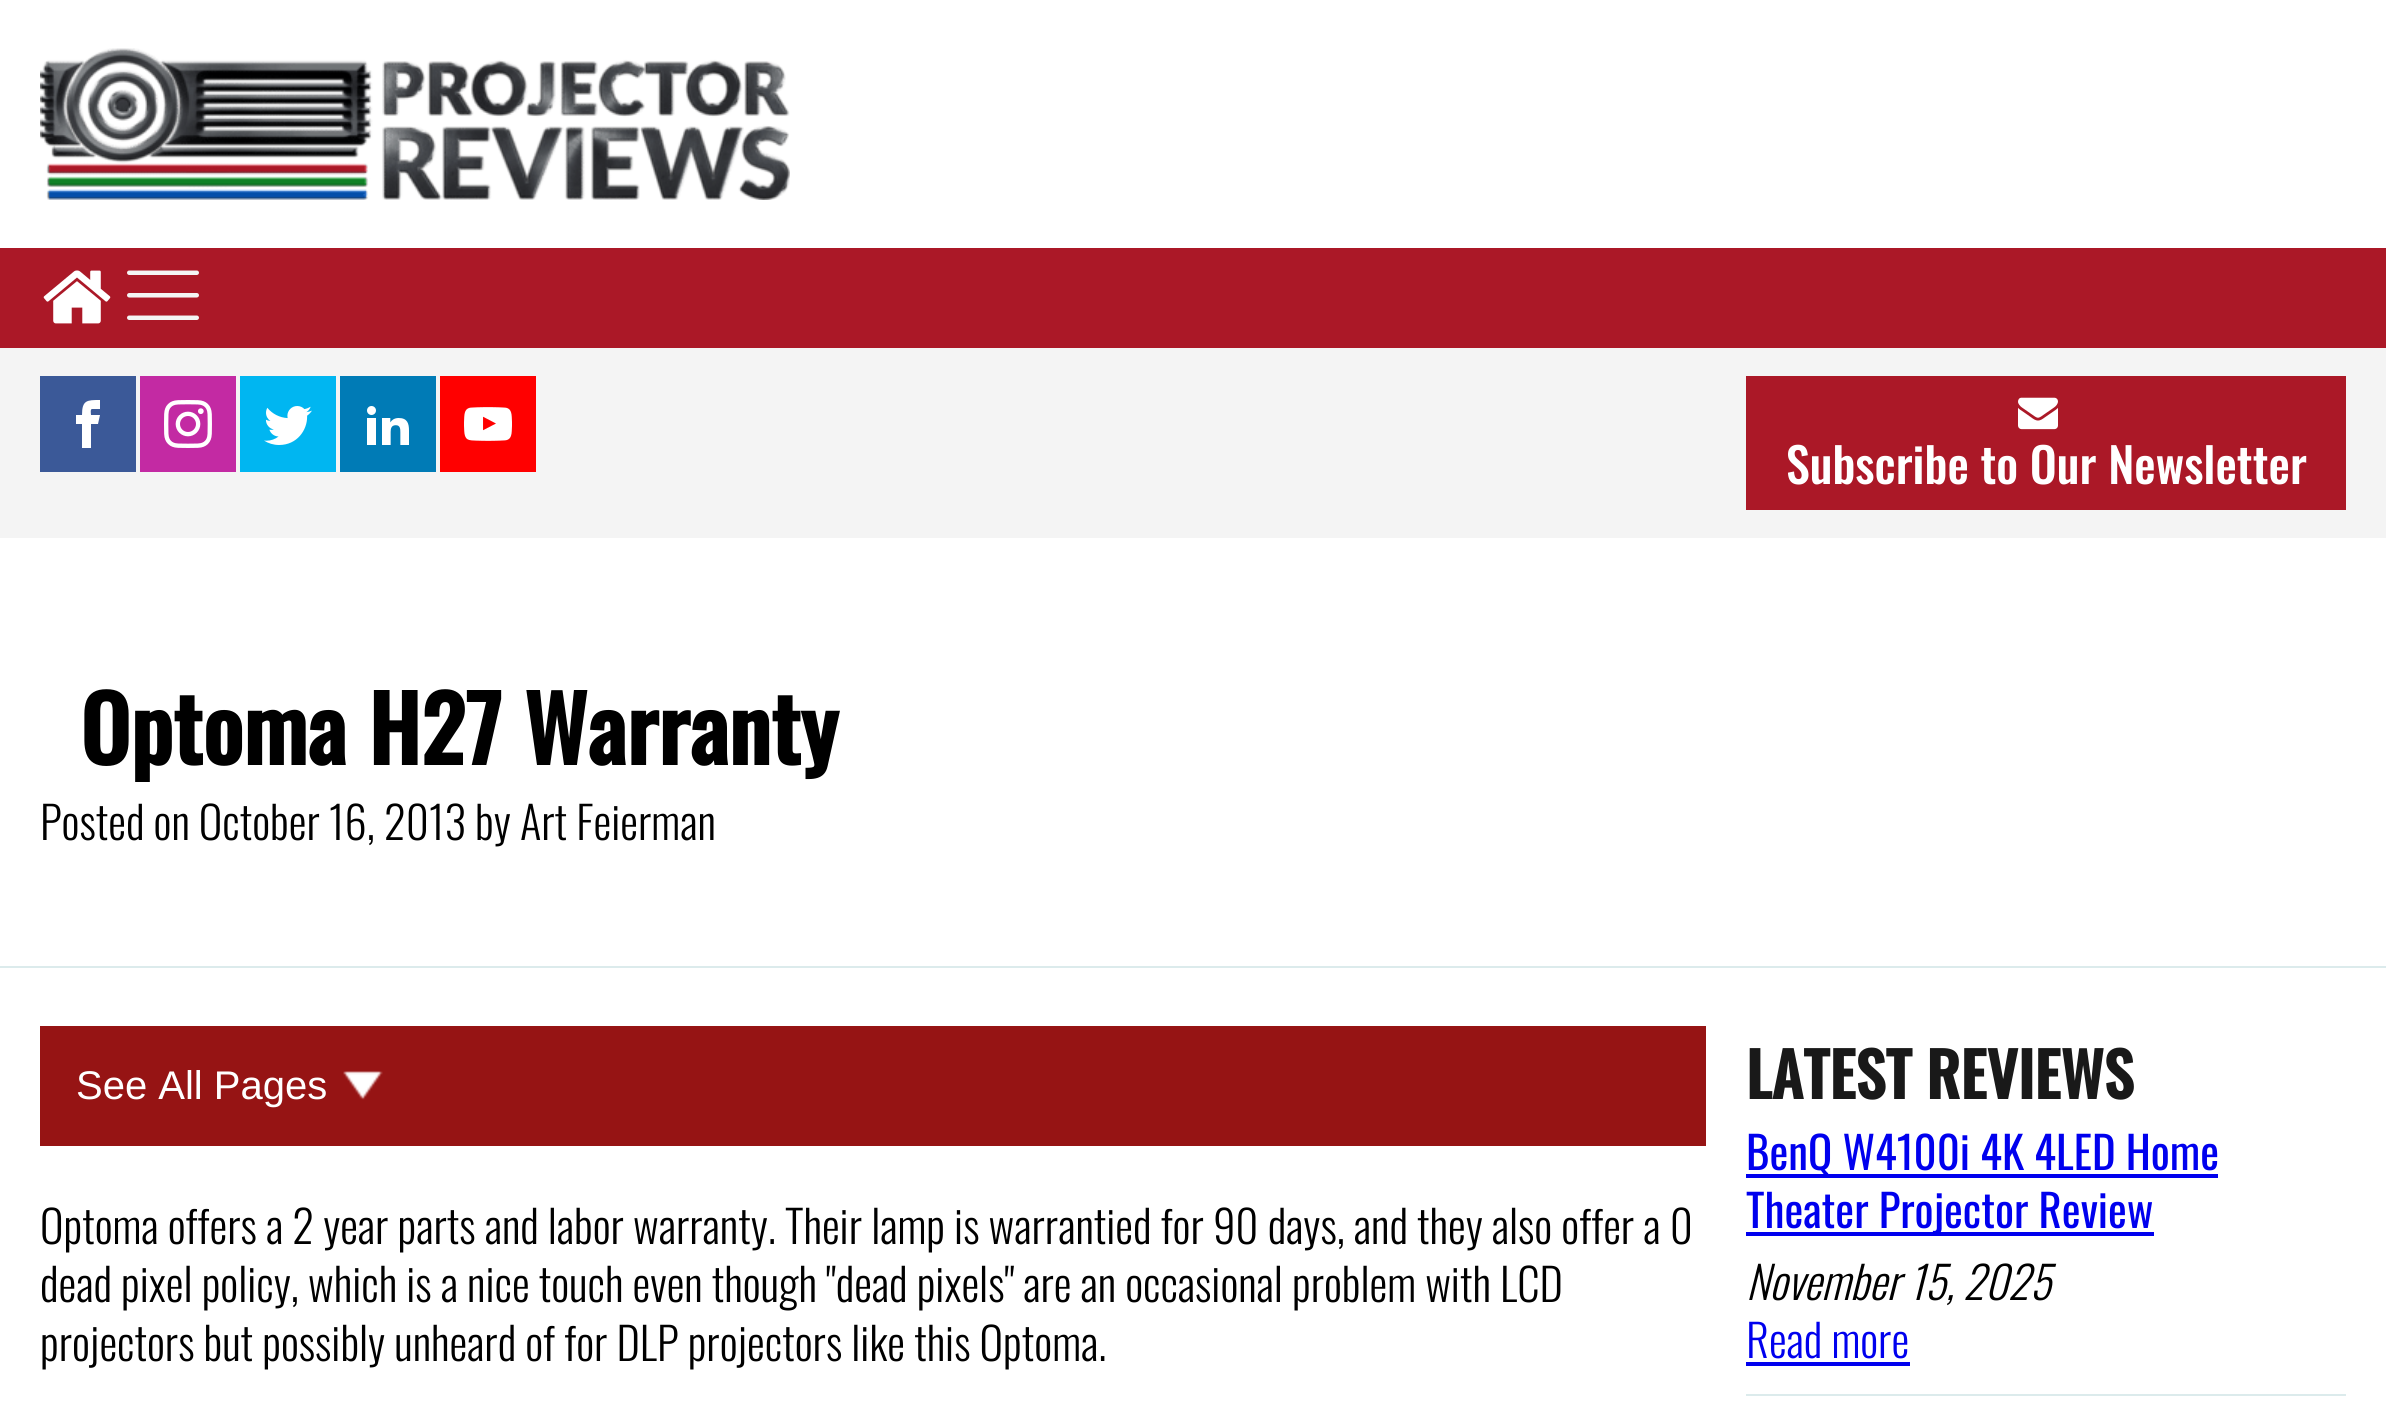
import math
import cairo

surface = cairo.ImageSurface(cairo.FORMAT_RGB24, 2386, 1405)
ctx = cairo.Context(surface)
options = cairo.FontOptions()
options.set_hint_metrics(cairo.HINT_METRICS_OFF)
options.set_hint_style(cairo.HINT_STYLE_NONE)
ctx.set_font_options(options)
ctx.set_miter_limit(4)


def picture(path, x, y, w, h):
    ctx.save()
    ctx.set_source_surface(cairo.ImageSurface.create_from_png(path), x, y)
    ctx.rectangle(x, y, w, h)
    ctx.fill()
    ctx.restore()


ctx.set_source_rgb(1, 1, 1)
ctx.paint()
picture("img1.png", 40, 48, 750, 152)
ctx.set_source_rgb(0.671, 0.094, 0.153)
ctx.rectangle(0, 248, 2386, 100)
ctx.fill()
picture("img2.png", 43, 270, 68, 54)
picture("img3.png", 127, 270, 72, 50)
ctx.set_source_rgb(0.957, 0.957, 0.957)
ctx.rectangle(0, 348, 2386, 190)
ctx.fill()
ctx.set_source_rgb(0.231, 0.349, 0.596)
ctx.rectangle(40, 376, 96, 96)
ctx.fill()
ctx.set_source_rgb(1, 1, 1)
ctx.new_path()
ctx.move_to(92, 409)
ctx.line_to(100, 409)
ctx.line_to(100, 400)
ctx.curve_to(87, 400, 82, 400, 82, 415)
ctx.line_to(76, 415)
ctx.line_to(76, 424)
ctx.line_to(82, 424)
ctx.line_to(82, 448)
ctx.line_to(91, 448)
ctx.line_to(91, 424)
ctx.line_to(98, 424)
ctx.line_to(100, 415)
ctx.line_to(91, 415)
ctx.curve_to(91, 414, 90, 409, 92, 409)
ctx.close_path()
ctx.fill()
ctx.set_source_rgb(0.765, 0.165, 0.639)
ctx.rectangle(140, 376, 96, 96)
ctx.fill()
picture("img4.png", 164, 400, 48, 48)
ctx.set_source_rgb(0, 0.714, 0.945)
ctx.rectangle(240, 376, 96, 96)
ctx.fill()
picture("img5.png", 264, 406, 48, 39)
ctx.set_source_rgb(0, 0.482, 0.714)
ctx.rectangle(340, 376, 96, 96)
ctx.fill()
picture("img6.png", 367, 406, 42, 39)
ctx.set_source_rgb(1, 0, 0)
ctx.rectangle(440, 376, 96, 96)
ctx.fill()
picture("img7.png", 464, 407, 48, 34)
ctx.set_source_rgb(0.671, 0.094, 0.153)
ctx.rectangle(1746, 376, 600, 134)
ctx.fill()
picture("img8.png", 2018, 397, 40, 33)
ctx.select_font_face("Oswald Medium")
ctx.set_font_size(48)
ctx.set_source_rgb(1, 1, 1)
ctx.move_to(1786, 484)
ctx.show_text("Subscribe to Our Newsletter")
ctx.set_source_rgb(0.863, 0.918, 0.925)
ctx.rectangle(0, 966, 2386, 2)
ctx.fill()
ctx.select_font_face("Oswald", cairo.FONT_SLANT_NORMAL, cairo.FONT_WEIGHT_BOLD)
ctx.set_font_size(89.5)
ctx.set_source_rgb(0, 0, 0)
ctx.move_to(80, 765)
ctx.show_text("Optoma H27 Warranty")
ctx.select_font_face("Oswald Light")
ctx.set_font_size(44.75)
ctx.move_to(40, 840)
ctx.show_text("Posted on October 16, 2013 by Art Feierman")
ctx.set_source_rgb(0.588, 0.082, 0.082)
ctx.rectangle(40, 1026, 1666, 120)
ctx.fill()
ctx.select_font_face("Liberation Sans")
ctx.set_font_size(40)
ctx.set_source_rgb(1, 1, 1)
ctx.move_to(76, 1099)
ctx.show_text("See All Pages")
picture("img9.png", 343, 1071, 40, 29)
ctx.select_font_face("Oswald Light")
ctx.set_font_size(44.75)
ctx.set_source_rgb(0, 0, 0)
ctx.move_to(40, 1244)
ctx.show_text("Optoma offers a 2 year parts and labor warranty. Their lamp is warrantied for 90 days, and they also offer a 0")
ctx.move_to(40, 1302)
ctx.show_text("dead pixel policy, which is a nice touch even though \"dead pixels\" are an occasional problem with LCD")
ctx.move_to(40, 1361)
ctx.show_text("projectors but possibly unheard of for DLP projectors like this Optoma.")
ctx.select_font_face("Oswald", cairo.FONT_SLANT_NORMAL, cairo.FONT_WEIGHT_BOLD)
ctx.set_font_size(60.75)
ctx.set_source_rgb(0.098, 0.098, 0.098)
ctx.move_to(1746, 1099)
ctx.show_text("LATEST REVIEWS")
ctx.set_source_rgb(0.863, 0.918, 0.925)
ctx.rectangle(1746, 1394, 600, 2)
ctx.fill()
ctx.set_source_rgb(0, 0, 0.933)
ctx.rectangle(1746, 1174, 472, 4)
ctx.fill()
ctx.select_font_face("Oswald")
ctx.set_font_size(44.75)
ctx.move_to(1746, 1170)
ctx.show_text("BenQ W4100i 4K 4LED Home")
ctx.rectangle(1746, 1232, 408, 4)
ctx.fill()
ctx.move_to(1746, 1228)
ctx.show_text("Theater Projector Review")
ctx.select_font_face("Oswald Light", cairo.FONT_SLANT_ITALIC)
ctx.set_source_rgb(0, 0, 0)
ctx.move_to(1746, 1300)
ctx.show_text("November 15, 2025")
ctx.select_font_face("Oswald Light")
ctx.set_source_rgb(0, 0, 0.933)
ctx.move_to(1746, 1358)
ctx.show_text("Read more")
ctx.rectangle(1746, 1362, 164, 4)
ctx.fill()
surface.write_to_png("page.png")
